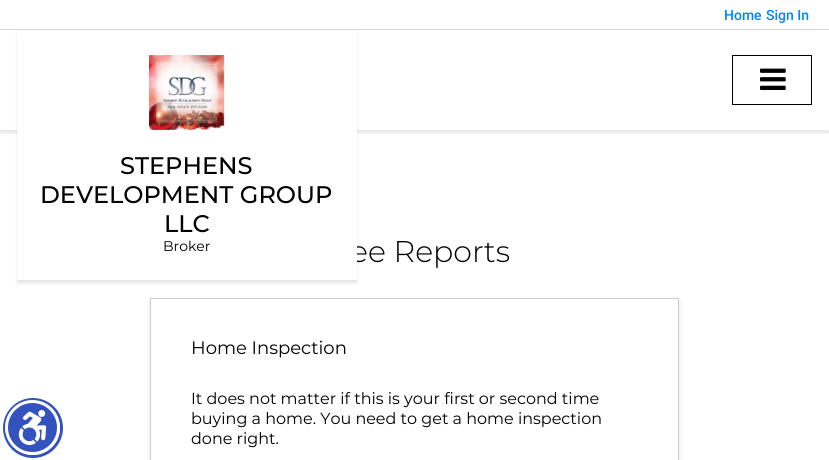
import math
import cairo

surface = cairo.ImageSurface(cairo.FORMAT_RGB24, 829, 460)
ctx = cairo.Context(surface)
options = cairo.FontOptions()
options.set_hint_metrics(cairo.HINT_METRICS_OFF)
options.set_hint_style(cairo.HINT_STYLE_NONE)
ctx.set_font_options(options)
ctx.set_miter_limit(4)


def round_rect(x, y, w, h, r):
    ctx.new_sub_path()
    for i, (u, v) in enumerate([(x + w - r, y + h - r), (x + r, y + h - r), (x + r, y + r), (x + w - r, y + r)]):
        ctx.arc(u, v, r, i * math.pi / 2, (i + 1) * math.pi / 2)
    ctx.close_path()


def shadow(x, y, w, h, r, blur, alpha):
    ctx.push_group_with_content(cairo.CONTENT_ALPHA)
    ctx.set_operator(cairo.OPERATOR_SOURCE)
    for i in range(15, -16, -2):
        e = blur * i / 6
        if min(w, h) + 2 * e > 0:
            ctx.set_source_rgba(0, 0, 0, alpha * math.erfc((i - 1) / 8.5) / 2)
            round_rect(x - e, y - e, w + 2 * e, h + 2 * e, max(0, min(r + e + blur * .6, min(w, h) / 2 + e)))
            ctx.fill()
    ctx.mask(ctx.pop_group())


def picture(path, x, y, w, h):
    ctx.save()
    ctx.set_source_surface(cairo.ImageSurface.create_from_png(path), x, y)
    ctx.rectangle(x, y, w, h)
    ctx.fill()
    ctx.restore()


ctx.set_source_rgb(1, 1, 1)
ctx.paint()
ctx.arc(33, 428, 28.5, 0, 2 * math.pi)
ctx.set_source_rgb(0.204, 0.322, 0.741)
ctx.set_line_width(3)
ctx.stroke()
ctx.arc(32.5, 427.5, 26, 0, 2 * math.pi)
ctx.fill_preserve()
ctx.set_source_rgb(1, 1, 1)
ctx.stroke()
picture("img1.png", 18, 410, 29, 35)
ctx.save()
ctx.rectangle(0, 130, 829, 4)
ctx.clip()
ctx.set_source_rgb(0, 0, 0)
shadow(0, 3, 829, 130, 0, 1.5, 0.1)
ctx.restore()
ctx.set_source_rgb(0, 0, 0)
shadow(17, 33, 340, 250, 0, 1.5, 0.1)
ctx.set_source_rgb(0.839, 0.839, 0.839)
ctx.rectangle(0, 29, 829, 1)
ctx.fill()
ctx.select_font_face("Roboto Medium")
ctx.set_font_size(14)
ctx.set_source_rgb(0, 0.518, 1)
ctx.move_to(724, 20)
ctx.show_text("Home")
ctx.move_to(766, 20)
ctx.show_text("Sign In")
ctx.rectangle(732.5, 55.5, 79, 49)
ctx.set_source_rgb(0, 0, 0)
ctx.set_line_width(1)
ctx.stroke()
picture("img2.png", 760, 68, 26, 22)
ctx.select_font_face("Montserrat Light")
ctx.set_font_size(30)
ctx.move_to(350, 262)
ctx.show_text("ee Reports")
ctx.set_source_rgb(1, 1, 1)
ctx.rectangle(17, 31, 340, 249)
ctx.fill()
picture("img3.png", 149, 55, 76, 75)
ctx.select_font_face("Montserrat Medium")
ctx.set_font_size(24)
ctx.set_source_rgb(0, 0, 0)
ctx.move_to(120, 174)
ctx.show_text("STEPHENS")
ctx.move_to(40, 203)
ctx.show_text("DEVELOPMENT GROUP")
ctx.move_to(164, 232)
ctx.show_text("LLC")
ctx.select_font_face("Montserrat")
ctx.set_font_size(14)
ctx.move_to(163, 251)
ctx.show_text("Broker")
ctx.save()
ctx.set_fill_rule(cairo.FILL_RULE_EVEN_ODD)
ctx.new_path()
ctx.move_to(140, 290)
ctx.line_to(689, 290)
ctx.line_to(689, 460)
ctx.line_to(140, 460)
ctx.close_path()
ctx.move_to(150, 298)
ctx.line_to(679, 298)
ctx.line_to(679, 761)
ctx.line_to(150, 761)
ctx.close_path()
ctx.clip()
ctx.set_source_rgb(0, 0, 0)
shadow(150, 300, 529, 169, 0, 3, 0.1)
ctx.restore()
ctx.rectangle(150.5, 298.5, 528, 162)
ctx.set_source_rgb(0.8, 0.8, 0.8)
ctx.stroke()
ctx.set_font_size(18)
ctx.set_source_rgb(0, 0, 0)
ctx.move_to(191, 354)
ctx.show_text("Home Inspection")
ctx.set_font_size(16)
ctx.move_to(191, 404)
ctx.show_text("It does not matter if this is your first or second time")
ctx.move_to(191, 424)
ctx.show_text("buying a home. You need to get a home inspection")
ctx.move_to(191, 444)
ctx.show_text("done right.")
surface.write_to_png("page.png")
